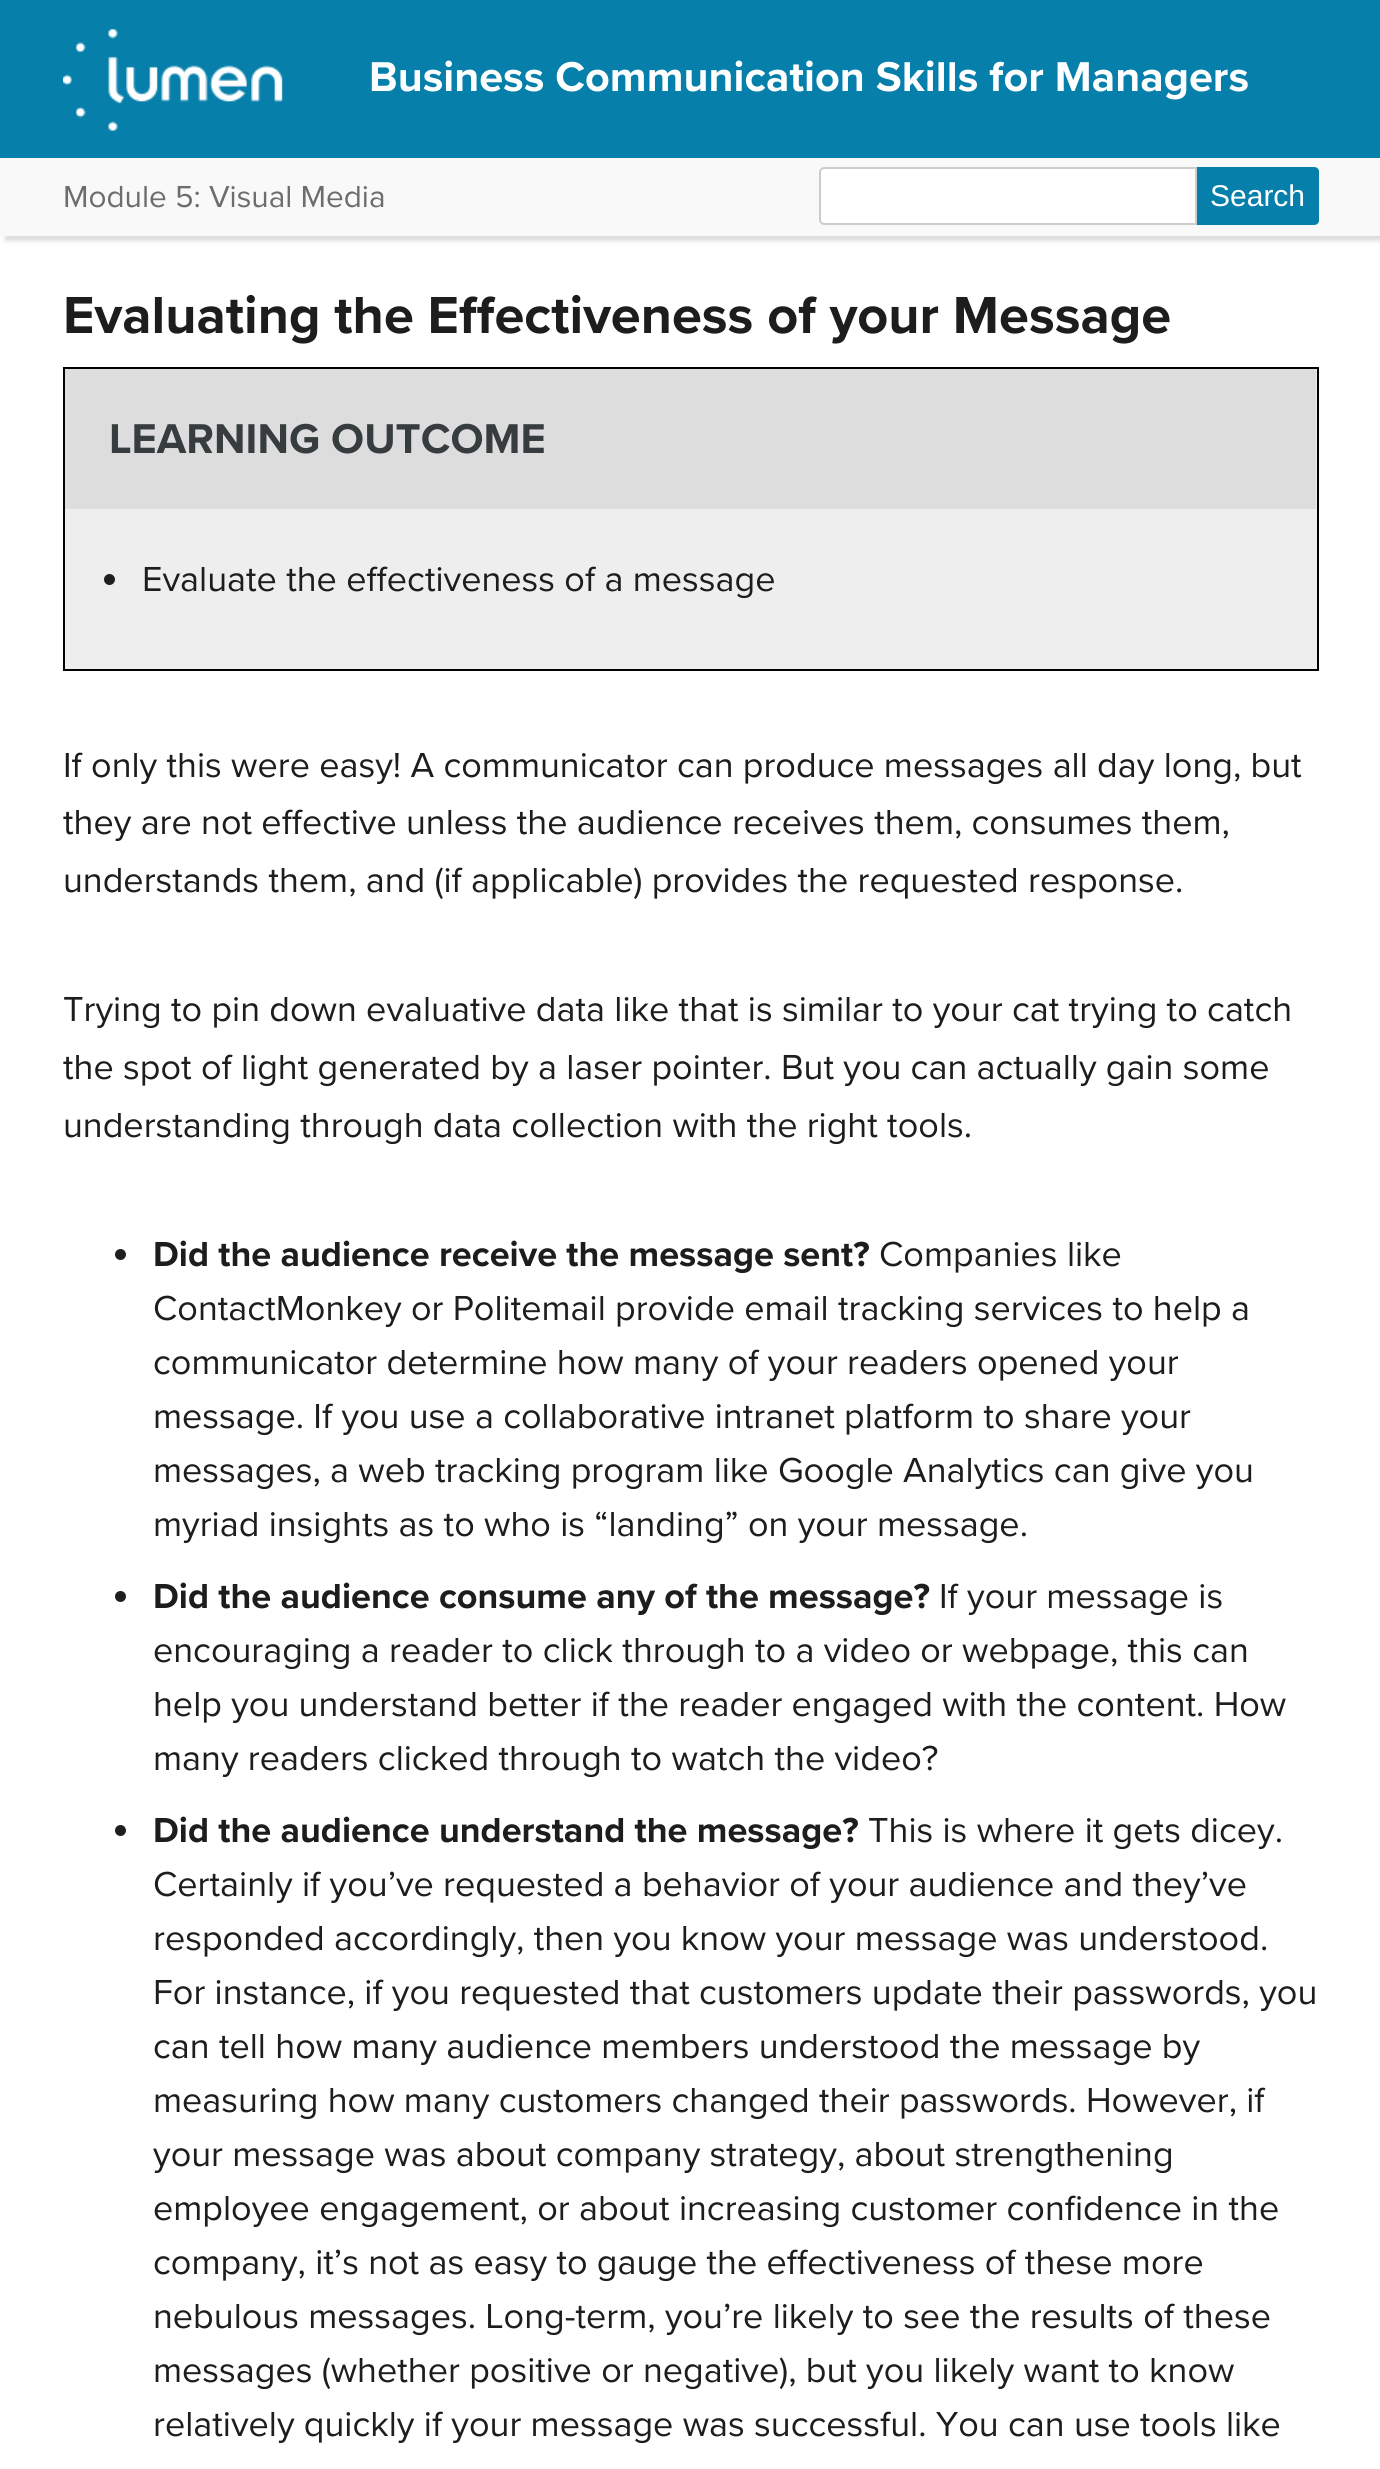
import math
import cairo

surface = cairo.ImageSurface(cairo.FORMAT_RGB24, 1380, 2469)
ctx = cairo.Context(surface)
options = cairo.FontOptions()
options.set_hint_metrics(cairo.HINT_METRICS_OFF)
options.set_hint_style(cairo.HINT_STYLE_NONE)
ctx.set_font_options(options)
ctx.set_miter_limit(4)


def round_rect(x, y, w, h, r):
    ctx.new_sub_path()
    for i, (u, v) in enumerate([(x + w - r, y + h - r), (x + r, y + h - r), (x + r, y + r), (x + w - r, y + r)]):
        ctx.arc(u, v, r, i * math.pi / 2, (i + 1) * math.pi / 2)
    ctx.close_path()


def shadow(x, y, w, h, r, blur, alpha):
    ctx.push_group_with_content(cairo.CONTENT_ALPHA)
    ctx.set_operator(cairo.OPERATOR_SOURCE)
    for i in range(15, -16, -2):
        e = blur * i / 6
        if min(w, h) + 2 * e > 0:
            ctx.set_source_rgba(0, 0, 0, alpha * math.erfc((i - 1) / 8.5) / 2)
            round_rect(x - e, y - e, w + 2 * e, h + 2 * e, max(0, min(r + e + blur * .6, min(w, h) / 2 + e)))
            ctx.fill()
    ctx.mask(ctx.pop_group())


def picture(path, x, y, w, h):
    ctx.save()
    ctx.set_source_surface(cairo.ImageSurface.create_from_png(path), x, y)
    ctx.rectangle(x, y, w, h)
    ctx.fill()
    ctx.restore()


ctx.set_source_rgb(1, 1, 1)
ctx.paint()
ctx.set_source_rgb(0.867, 0.867, 0.867)
shadow(5, 162, 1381, 79, 0, 2, 1)
ctx.set_source_rgb(0.027, 0.498, 0.671)
ctx.rectangle(0, 0, 1380, 158)
ctx.fill()
picture("img1.png", 63, 29, 220, 102)
ctx.select_font_face("Proxima Nova", cairo.FONT_SLANT_NORMAL, cairo.FONT_WEIGHT_BOLD)
ctx.set_font_size(43.2)
ctx.set_source_rgb(1, 1, 1)
ctx.move_to(369, 91)
ctx.show_text("Business Communication Skills for Managers")
ctx.set_source_rgb(0.976, 0.976, 0.976)
ctx.rectangle(0, 158, 1380, 78)
ctx.fill()
ctx.select_font_face("Proxima Nova")
ctx.set_font_size(31.5)
ctx.set_source_rgb(0.427, 0.427, 0.427)
ctx.move_to(63, 207)
ctx.show_text("Module 5: Visual Media")
ctx.set_source_rgb(1, 1, 1)
ctx.new_path()
ctx.move_to(824, 168)
ctx.line_to(1196, 168)
ctx.line_to(1196, 224)
ctx.line_to(824, 224)
ctx.curve_to(822, 224, 820, 222, 820, 220)
ctx.line_to(820, 172)
ctx.curve_to(820, 170, 822, 168, 824, 168)
ctx.close_path()
ctx.fill_preserve()
ctx.set_source_rgb(0.8, 0.8, 0.8)
ctx.stroke()
ctx.set_source_rgb(0.027, 0.498, 0.671)
ctx.new_path()
ctx.move_to(1197, 167)
ctx.line_to(1314, 167)
ctx.curve_to(1317, 167, 1319, 169, 1319, 172)
ctx.line_to(1319, 220)
ctx.curve_to(1319, 223, 1317, 225, 1314, 225)
ctx.line_to(1197, 225)
ctx.close_path()
ctx.fill()
ctx.select_font_face("Liberation Sans")
ctx.set_font_size(30)
ctx.set_source_rgb(1, 1, 1)
ctx.move_to(1210, 206)
ctx.show_text("Search")
ctx.select_font_face("Proxima Nova", cairo.FONT_SLANT_NORMAL, cairo.FONT_WEIGHT_BOLD)
ctx.set_font_size(54)
ctx.set_source_rgb(0.114, 0.114, 0.114)
ctx.move_to(63, 333)
ctx.show_text("Evaluating the Effectiveness of your Message")
ctx.set_source_rgb(0.933, 0.933, 0.933)
ctx.rectangle(64, 368, 1254, 302)
ctx.fill_preserve()
ctx.set_source_rgb(0, 0, 0)
ctx.stroke()
ctx.set_source_rgb(0.867, 0.867, 0.867)
ctx.rectangle(65, 369, 1251, 140)
ctx.fill()
ctx.set_font_size(43.2)
ctx.set_source_rgb(0.216, 0.239, 0.247)
ctx.move_to(109, 453)
ctx.show_text("LEARNING OUTCOME")
ctx.set_source_rgb(0.122, 0.122, 0.114)
ctx.new_path()
ctx.arc(109.5, 579.5, 5.5, 0, 2 * math.pi)
ctx.fill()
ctx.select_font_face("Proxima Nova")
ctx.set_font_size(36)
ctx.set_source_rgb(0.114, 0.114, 0.114)
ctx.move_to(142, 591)
ctx.show_text("Evaluate the effectiveness of a message")
ctx.move_to(63, 777)
ctx.show_text("If only this were easy! A communicator can produce messages all day long, but")
ctx.move_to(63, 834)
ctx.show_text("they are not effective unless the audience receives them, consumes them,")
ctx.move_to(63, 892)
ctx.show_text("understands them, and (if applicable) provides the requested response.")
ctx.move_to(63, 1021)
ctx.show_text("Trying to pin down evaluative data like that is similar to your cat trying to catch")
ctx.move_to(63, 1079)
ctx.show_text("the spot of light generated by a laser pointer. But you can actually gain some")
ctx.move_to(63, 1137)
ctx.show_text("understanding through data collection with the right tools.")
ctx.set_source_rgb(0.122, 0.122, 0.114)
ctx.new_path()
ctx.arc(120.5, 1254.5, 5.5, 0, 2 * math.pi)
ctx.fill()
ctx.select_font_face("Proxima Nova", cairo.FONT_SLANT_NORMAL, cairo.FONT_WEIGHT_BOLD)
ctx.set_source_rgb(0.114, 0.114, 0.114)
ctx.move_to(153, 1266)
ctx.show_text("Did the audience receive the message sent?")
ctx.select_font_face("Proxima Nova")
ctx.move_to(879, 1266)
ctx.show_text("Companies like")
ctx.move_to(153, 1320)
ctx.show_text("ContactMonkey or Politemail provide email tracking services to help a")
ctx.move_to(153, 1374)
ctx.show_text("communicator determine how many of your readers opened your")
ctx.move_to(153, 1428)
ctx.show_text("message. If you use a collaborative intranet platform to share your")
ctx.move_to(153, 1482)
ctx.show_text("messages, a web tracking program like Google Analytics can give you")
ctx.move_to(153, 1536)
ctx.show_text("myriad insights as to who is “landing” on your message.")
ctx.set_source_rgb(0.122, 0.122, 0.114)
ctx.new_path()
ctx.arc(120.5, 1596.5, 5.5, 0, 2 * math.pi)
ctx.fill()
ctx.select_font_face("Proxima Nova", cairo.FONT_SLANT_NORMAL, cairo.FONT_WEIGHT_BOLD)
ctx.set_source_rgb(0.114, 0.114, 0.114)
ctx.move_to(153, 1608)
ctx.show_text("Did the audience consume any of the message?")
ctx.select_font_face("Proxima Nova")
ctx.move_to(939, 1608)
ctx.show_text("If your message is")
ctx.move_to(153, 1662)
ctx.show_text("encouraging a reader to click through to a video or webpage, this can")
ctx.move_to(153, 1716)
ctx.show_text("help you understand better if the reader engaged with the content. How")
ctx.move_to(153, 1770)
ctx.show_text("many readers clicked through to watch the video?")
ctx.set_source_rgb(0.122, 0.122, 0.114)
ctx.new_path()
ctx.arc(120.5, 1830.5, 5.5, 0, 2 * math.pi)
ctx.fill()
ctx.select_font_face("Proxima Nova", cairo.FONT_SLANT_NORMAL, cairo.FONT_WEIGHT_BOLD)
ctx.set_source_rgb(0.114, 0.114, 0.114)
ctx.move_to(153, 1842)
ctx.show_text("Did the audience understand the message?")
ctx.select_font_face("Proxima Nova")
ctx.move_to(868, 1842)
ctx.show_text("This is where it gets dicey.")
ctx.move_to(153, 1896)
ctx.show_text("Certainly if you’ve requested a behavior of your audience and they’ve")
ctx.move_to(153, 1950)
ctx.show_text("responded accordingly, then you know your message was understood.")
ctx.move_to(153, 2004)
ctx.show_text("For instance, if you requested that customers update their passwords, you")
ctx.move_to(153, 2058)
ctx.show_text("can tell how many audience members understood the message by")
ctx.move_to(153, 2112)
ctx.show_text("measuring how many customers changed their passwords. However, if")
ctx.move_to(153, 2166)
ctx.show_text("your message was about company strategy, about strengthening")
ctx.move_to(153, 2220)
ctx.show_text("employee engagement, or about increasing customer confidence in the")
ctx.move_to(153, 2274)
ctx.show_text("company, it’s not as easy to gauge the effectiveness of these more")
ctx.move_to(153, 2328)
ctx.show_text("nebulous messages. Long-term, you’re likely to see the results of these")
ctx.move_to(153, 2382)
ctx.show_text("messages (whether positive or negative), but you likely want to know")
ctx.move_to(153, 2436)
ctx.show_text("relatively quickly if your message was successful. You can use tools like")
surface.write_to_png("page.png")
